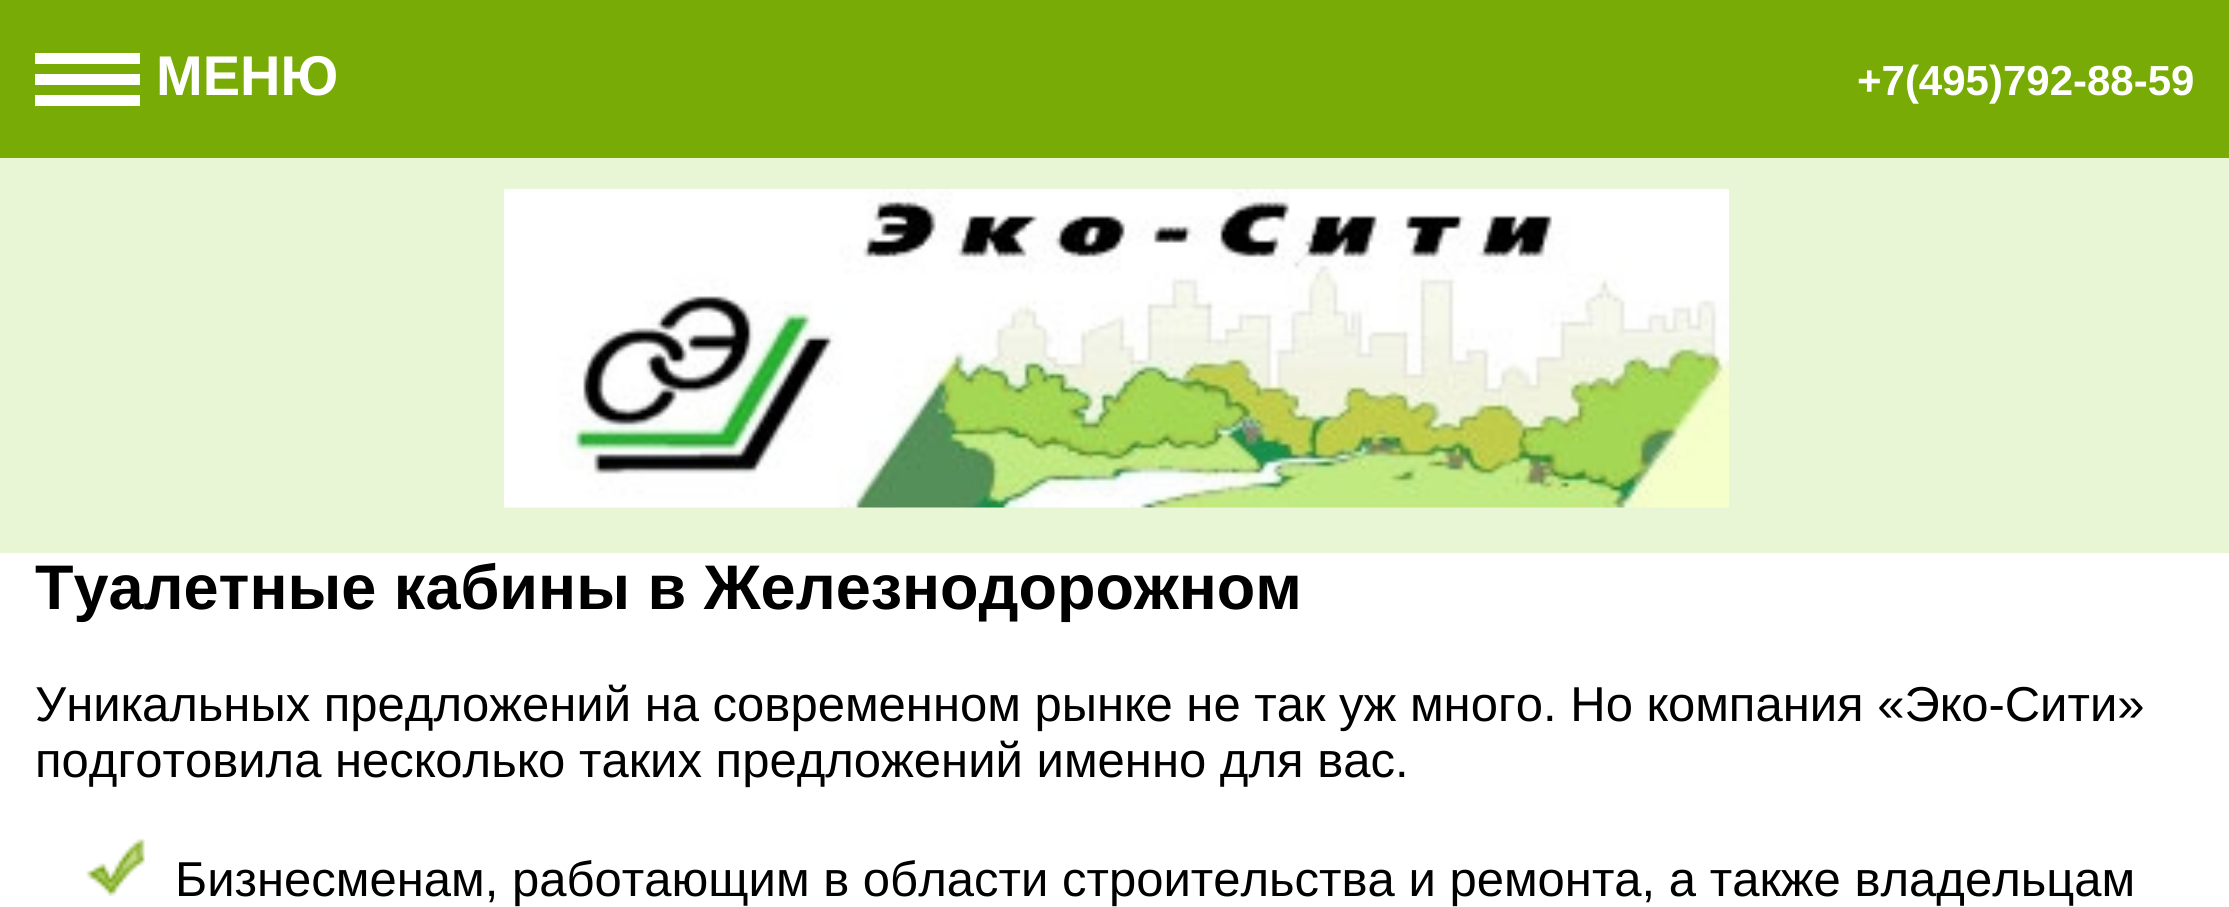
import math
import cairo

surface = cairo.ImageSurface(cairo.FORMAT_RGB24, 2229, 907)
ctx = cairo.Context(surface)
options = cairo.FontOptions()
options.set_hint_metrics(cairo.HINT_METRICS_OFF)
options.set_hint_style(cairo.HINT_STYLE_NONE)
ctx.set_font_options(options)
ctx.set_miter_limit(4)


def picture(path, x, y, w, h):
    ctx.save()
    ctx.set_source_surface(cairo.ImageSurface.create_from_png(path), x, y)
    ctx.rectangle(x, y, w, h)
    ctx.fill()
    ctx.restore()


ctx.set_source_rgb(0.914, 0.961, 0.835)
ctx.paint()
ctx.set_source_rgb(0.471, 0.671, 0.02)
ctx.rectangle(0, 0, 2229, 158)
ctx.fill()
ctx.set_source_rgb(1, 1, 1)
ctx.rectangle(35, 74, 105, 11)
ctx.fill()
ctx.rectangle(35, 53, 105, 11)
ctx.fill()
ctx.rectangle(35, 95, 105, 11)
ctx.fill()
ctx.select_font_face("Liberation Sans", cairo.FONT_SLANT_NORMAL, cairo.FONT_WEIGHT_BOLD)
ctx.set_font_size(56)
ctx.move_to(156, 95)
ctx.show_text("МЕНЮ")
ctx.set_font_size(42)
ctx.move_to(1857, 95)
ctx.show_text("+7(495)792-88-59")
picture("img1.png", 504, 189, 1225, 319)
ctx.rectangle(0, 553, 2229, 354)
ctx.fill()
ctx.set_font_size(63)
ctx.set_source_rgb(0, 0, 0)
ctx.move_to(35, 609)
ctx.show_text("Туалетные кабины в Железнодорожном")
ctx.select_font_face("Liberation Sans")
ctx.set_font_size(49)
ctx.move_to(35, 721)
ctx.show_text("Уникальных предложений на современном рынке не так уж много. Но компания «Эко-Сити»")
ctx.move_to(35, 777)
ctx.show_text("подготовила несколько таких предложений именно для вас.")
picture("img2.png", 86, 838, 59, 58)
ctx.move_to(175, 896)
ctx.show_text("Бизнесменам, работающим в области строительства и ремонта, а также владельцам")
surface.write_to_png("page.png")
